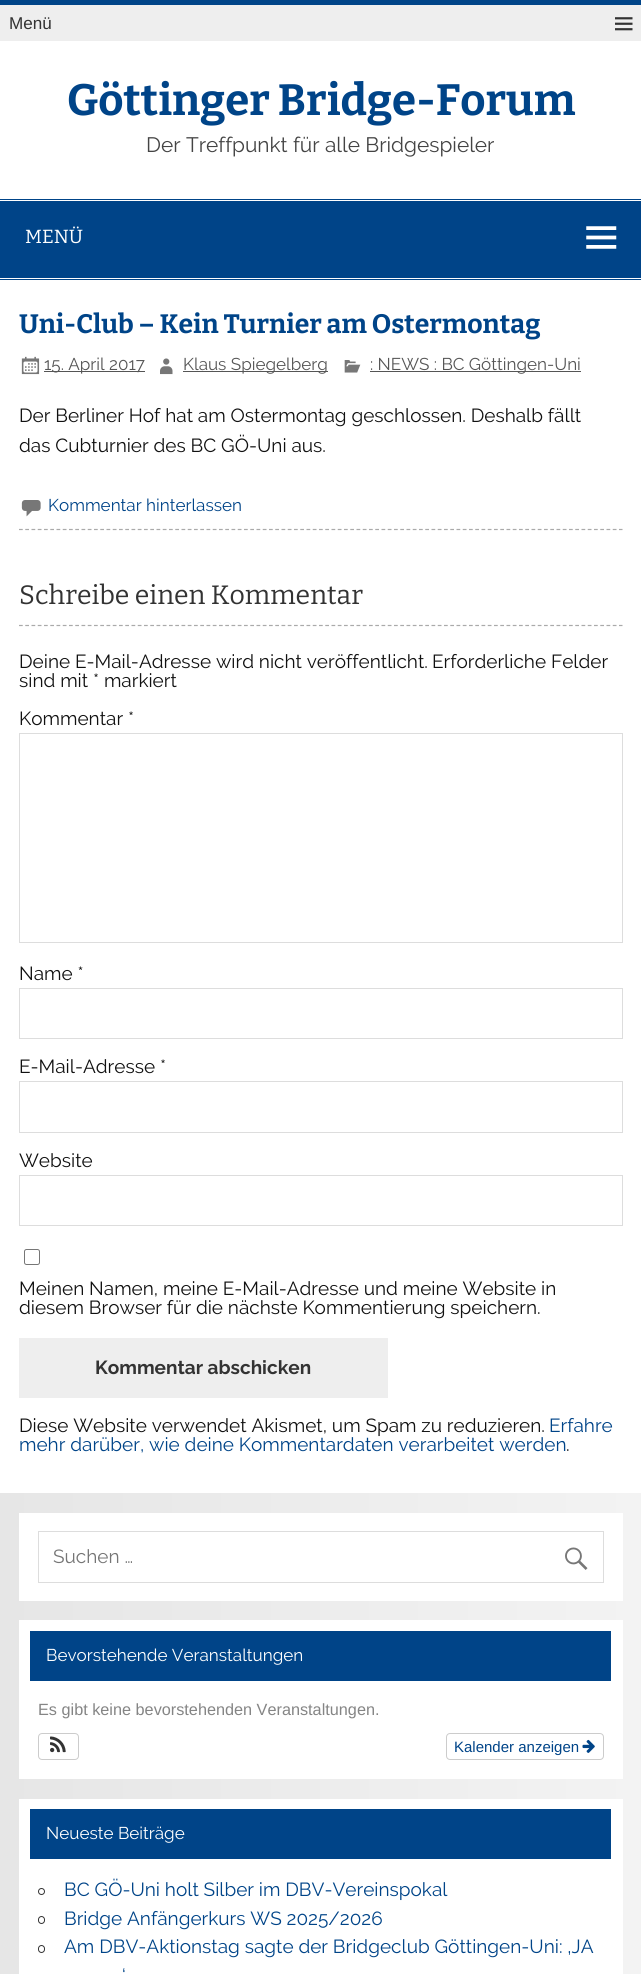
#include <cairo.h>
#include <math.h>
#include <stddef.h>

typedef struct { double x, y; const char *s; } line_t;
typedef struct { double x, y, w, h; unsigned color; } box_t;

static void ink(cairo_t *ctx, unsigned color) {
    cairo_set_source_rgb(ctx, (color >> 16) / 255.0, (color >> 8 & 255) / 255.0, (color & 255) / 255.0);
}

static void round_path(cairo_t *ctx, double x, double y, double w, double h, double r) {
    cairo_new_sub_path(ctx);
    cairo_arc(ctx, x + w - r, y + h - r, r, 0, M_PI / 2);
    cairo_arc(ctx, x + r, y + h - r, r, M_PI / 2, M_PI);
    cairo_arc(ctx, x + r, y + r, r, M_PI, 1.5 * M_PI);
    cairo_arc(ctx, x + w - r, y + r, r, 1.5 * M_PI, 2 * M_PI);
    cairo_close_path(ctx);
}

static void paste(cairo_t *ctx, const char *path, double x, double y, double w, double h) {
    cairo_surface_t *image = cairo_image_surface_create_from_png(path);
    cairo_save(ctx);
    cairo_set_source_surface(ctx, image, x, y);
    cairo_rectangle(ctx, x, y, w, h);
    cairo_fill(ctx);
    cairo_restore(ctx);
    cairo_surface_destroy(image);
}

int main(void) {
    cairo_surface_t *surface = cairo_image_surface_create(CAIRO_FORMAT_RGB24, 641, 1974);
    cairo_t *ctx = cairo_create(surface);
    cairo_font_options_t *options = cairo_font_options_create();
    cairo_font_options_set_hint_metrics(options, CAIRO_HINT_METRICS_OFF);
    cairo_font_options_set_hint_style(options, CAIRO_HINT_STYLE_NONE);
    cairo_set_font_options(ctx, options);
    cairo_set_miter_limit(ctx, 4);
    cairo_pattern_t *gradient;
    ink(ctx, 0xFFFFFF);
    cairo_paint(ctx);
    ink(ctx, 0x004488);
    cairo_rectangle(ctx, 0, 0, 641, 5);
    cairo_fill(ctx);
    ink(ctx, 0xEEEEEE);
    cairo_rectangle(ctx, 0, 5, 641, 36);
    cairo_fill(ctx);
    cairo_select_font_face(ctx, "Liberation Sans", CAIRO_FONT_SLANT_NORMAL, CAIRO_FONT_WEIGHT_NORMAL);
    cairo_set_font_size(ctx, 17.1);
    ink(ctx, 0x333333);
    cairo_move_to(ctx, 9, 29);
    cairo_show_text(ctx, "Menü");
    paste(ctx, "media/1.png", 615, 17, 18, 14);
    cairo_select_font_face(ctx, "Bitter", CAIRO_FONT_SLANT_NORMAL, CAIRO_FONT_WEIGHT_BOLD);
    cairo_set_font_size(ctx, 43.75);
    ink(ctx, 0x004488);
    cairo_move_to(ctx, 67, 115);
    cairo_show_text(ctx, "Göttinger Bridge-Forum");
    cairo_select_font_face(ctx, "Raleway", CAIRO_FONT_SLANT_NORMAL, CAIRO_FONT_WEIGHT_NORMAL);
    cairo_set_font_size(ctx, 20.9);
    ink(ctx, 0x444444);
    cairo_move_to(ctx, 146, 152);
    cairo_show_text(ctx, "Der Treffpunkt für alle Bridgespieler");
    {
        static const box_t items[] = {
            {0, 199, 641, 1, 0x004488},
            {0, 279, 641, 1, 0x004488},
            {0, 201, 641, 77, 0x004488},
        };
        for (size_t i = 0; i < sizeof items / sizeof *items; i++) {
            ink(ctx, items[i].color);
            cairo_rectangle(ctx, items[i].x, items[i].y, items[i].w, items[i].h);
            cairo_fill(ctx);
        }
    }
    cairo_select_font_face(ctx, "Bitter", CAIRO_FONT_SLANT_NORMAL, CAIRO_FONT_WEIGHT_NORMAL);
    cairo_set_font_size(ctx, 19);
    ink(ctx, 0xFFFFFF);
    cairo_move_to(ctx, 25, 243);
    cairo_show_text(ctx, "MENÜ");
    paste(ctx, "media/2.png", 586, 226, 31, 23);
    cairo_new_path(ctx);
    cairo_move_to(ctx, 19, 529.5);
    cairo_line_to(ctx, 622.5, 529.5);
    ink(ctx, 0xAAAAAA);
    cairo_set_line_width(ctx, 1.2);
    cairo_set_dash(ctx, (double[]){3.75, 2.5}, 2, 0);
    cairo_stroke(ctx);
    cairo_select_font_face(ctx, "Bitter", CAIRO_FONT_SLANT_NORMAL, CAIRO_FONT_WEIGHT_BOLD);
    cairo_set_font_size(ctx, 26.6);
    ink(ctx, 0x004488);
    cairo_move_to(ctx, 19, 333);
    cairo_show_text(ctx, "Uni-Club – Kein Turnier am Ostermontag");
    paste(ctx, "media/3.png", 21, 356, 19, 19);
    ink(ctx, 0x555555);
    cairo_rectangle(ctx, 44, 371, 101, 1);
    cairo_fill(ctx);
    cairo_select_font_face(ctx, "Raleway", CAIRO_FONT_SLANT_NORMAL, CAIRO_FONT_WEIGHT_NORMAL);
    cairo_set_font_size(ctx, 17.1);
    cairo_move_to(ctx, 44, 370);
    cairo_show_text(ctx, "15. April 2017");
    paste(ctx, "media/4.png", 160, 358, 13, 17);
    cairo_rectangle(ctx, 183, 371, 145, 1);
    cairo_fill(ctx);
    cairo_move_to(ctx, 183, 370);
    cairo_show_text(ctx, "Klaus Spiegelberg");
    paste(ctx, "media/5.png", 344, 360, 17, 13);
    cairo_rectangle(ctx, 370, 371, 211, 1);
    cairo_fill(ctx);
    cairo_move_to(ctx, 370, 370);
    cairo_show_text(ctx, ": NEWS : BC Göttingen-Uni");
    cairo_set_font_size(ctx, 19);
    ink(ctx, 0x111111);
    cairo_move_to(ctx, 19, 422);
    cairo_show_text(ctx, "Der Berliner Hof hat am Ostermontag geschlossen. Deshalb fällt");
    cairo_move_to(ctx, 19, 452);
    cairo_show_text(ctx, "das Cubturnier des BC GÖ-Uni aus.");
    paste(ctx, "media/6.png", 21, 500, 20, 17);
    cairo_set_font_size(ctx, 17.1);
    ink(ctx, 0x004488);
    cairo_move_to(ctx, 48, 511);
    cairo_show_text(ctx, "Kommentar hinterlassen");
    cairo_new_path(ctx);
    cairo_move_to(ctx, 19, 625.5);
    cairo_line_to(ctx, 622.5, 625.5);
    ink(ctx, 0xAAAAAA);
    cairo_stroke(ctx);
    cairo_select_font_face(ctx, "Bitter", CAIRO_FONT_SLANT_NORMAL, CAIRO_FONT_WEIGHT_NORMAL);
    cairo_set_font_size(ctx, 26.6);
    ink(ctx, 0x333333);
    cairo_move_to(ctx, 19, 604);
    cairo_show_text(ctx, "Schreibe einen Kommentar");
    cairo_select_font_face(ctx, "Raleway", CAIRO_FONT_SLANT_NORMAL, CAIRO_FONT_WEIGHT_NORMAL);
    cairo_set_font_size(ctx, 19);
    ink(ctx, 0x111111);
    {
        static const line_t items[] = {
            {19, 668, "Deine E-Mail-Adresse wird nicht veröffentlicht."},
            {432, 668, "Erforderliche Felder"},
            {19, 687, "sind mit * markiert"},
            {19, 725, "Kommentar *"},
        };
        for (size_t i = 0; i < sizeof items / sizeof *items; i++) {
            cairo_move_to(ctx, items[i].x, items[i].y);
            cairo_show_text(ctx, items[i].s);
        }
    }
    cairo_rectangle(ctx, 19.5, 733.5, 603, 209);
    ink(ctx, 0xDDDDDD);
    cairo_set_line_width(ctx, 1);
    cairo_set_dash(ctx, NULL, 0, 0);
    cairo_stroke(ctx);
    ink(ctx, 0x111111);
    cairo_move_to(ctx, 19, 980);
    cairo_show_text(ctx, "Name *");
    cairo_rectangle(ctx, 19.5, 988.5, 603, 50);
    ink(ctx, 0xDDDDDD);
    cairo_stroke(ctx);
    ink(ctx, 0x111111);
    cairo_move_to(ctx, 19, 1073);
    cairo_show_text(ctx, "E-Mail-Adresse *");
    cairo_rectangle(ctx, 19.5, 1081.5, 603, 51);
    ink(ctx, 0xDDDDDD);
    cairo_stroke(ctx);
    ink(ctx, 0x111111);
    cairo_move_to(ctx, 19, 1167);
    cairo_show_text(ctx, "Website");
    cairo_rectangle(ctx, 19.5, 1175.5, 603, 50);
    ink(ctx, 0xDDDDDD);
    cairo_stroke(ctx);
    round_path(ctx, 24.5, 1249.5, 15, 15, 2);
    ink(ctx, 0x767676);
    cairo_stroke(ctx);
    ink(ctx, 0x111111);
    cairo_move_to(ctx, 19, 1295);
    cairo_show_text(ctx, "Meinen Namen, meine E-Mail-Adresse und meine Website in");
    cairo_move_to(ctx, 19, 1314);
    cairo_show_text(ctx, "diesem Browser für die nächste Kommentierung speichern.");
    ink(ctx, 0xEEEEEE);
    cairo_rectangle(ctx, 19, 1338, 369, 60);
    cairo_fill(ctx);
    cairo_select_font_face(ctx, "Raleway", CAIRO_FONT_SLANT_NORMAL, CAIRO_FONT_WEIGHT_BOLD);
    ink(ctx, 0x333333);
    cairo_move_to(ctx, 95, 1374);
    cairo_show_text(ctx, "Kommentar abschicken");
    cairo_select_font_face(ctx, "Raleway", CAIRO_FONT_SLANT_NORMAL, CAIRO_FONT_WEIGHT_NORMAL);
    ink(ctx, 0x111111);
    cairo_move_to(ctx, 19, 1432);
    cairo_show_text(ctx, "Diese Website verwendet Akismet, um Spam zu reduzieren.");
    ink(ctx, 0x004488);
    cairo_move_to(ctx, 549, 1432);
    cairo_show_text(ctx, "Erfahre");
    cairo_move_to(ctx, 19, 1451);
    cairo_show_text(ctx, "mehr darüber, wie deine Kommentardaten verarbeitet werden");
    ink(ctx, 0x111111);
    cairo_move_to(ctx, 566, 1451);
    cairo_show_text(ctx, ".");
    gradient = cairo_pattern_create_linear(0, 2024, 641, 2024);
    cairo_pattern_add_color_stop_rgba(gradient, 0, 0.902, 0.902, 0.902, 1);
    cairo_pattern_add_color_stop_rgba(gradient, 1, 0.953, 0.953, 0.953, 1);
    cairo_set_source(ctx, gradient);
    cairo_pattern_destroy(gradient);
    cairo_rectangle(ctx, 0, 1493, 641, 481);
    cairo_fill(ctx);
    ink(ctx, 0xFFFFFF);
    cairo_rectangle(ctx, 19, 1513, 604, 88);
    cairo_fill(ctx);
    cairo_rectangle(ctx, 38.5, 1531.5, 565, 51);
    ink(ctx, 0xDDDDDD);
    cairo_stroke(ctx);
    ink(ctx, 0x757575);
    cairo_move_to(ctx, 53, 1563);
    cairo_show_text(ctx, "Suchen …");
    paste(ctx, "media/7.png", 565, 1547, 23, 23);
    ink(ctx, 0xFFFFFF);
    cairo_rectangle(ctx, 19, 1620, 604, 159);
    cairo_fill(ctx);
    ink(ctx, 0x004488);
    cairo_rectangle(ctx, 30, 1631, 581, 50);
    cairo_fill(ctx);
    cairo_set_font_size(ctx, 17.1);
    ink(ctx, 0xFFFFFF);
    cairo_move_to(ctx, 46, 1661);
    cairo_show_text(ctx, "Bevorstehende Veranstaltungen");
    cairo_select_font_face(ctx, "Liberation Sans", CAIRO_FONT_SLANT_NORMAL, CAIRO_FONT_WEIGHT_NORMAL);
    cairo_set_font_size(ctx, 16.25);
    ink(ctx, 0x858585);
    cairo_move_to(ctx, 38, 1715);
    cairo_show_text(ctx, "Es gibt keine bevorstehenden Veranstaltungen.");
    round_path(ctx, 38.5, 1733.5, 40, 26, 3.5);
    ink(ctx, 0xCCCCCC);
    cairo_stroke(ctx);
    paste(ctx, "media/8.png", 50, 1736, 16, 17);
    round_path(ctx, 446.5, 1733.5, 157, 26, 3.5);
    cairo_stroke(ctx);
    cairo_set_font_size(ctx, 15);
    ink(ctx, 0x004488);
    cairo_move_to(ctx, 454, 1752);
    cairo_show_text(ctx, "Kalender anzeigen");
    paste(ctx, "media/9.png", 582, 1739, 13, 14);
    ink(ctx, 0xFFFFFF);
    cairo_rectangle(ctx, 19, 1799, 604, 175);
    cairo_fill(ctx);
    ink(ctx, 0x004488);
    cairo_rectangle(ctx, 30, 1809, 581, 50);
    cairo_fill(ctx);
    cairo_select_font_face(ctx, "Raleway", CAIRO_FONT_SLANT_NORMAL, CAIRO_FONT_WEIGHT_NORMAL);
    cairo_set_font_size(ctx, 17.1);
    ink(ctx, 0xFFFFFF);
    cairo_move_to(ctx, 46, 1839);
    cairo_show_text(ctx, "Neueste Beiträge");
    cairo_new_path(ctx);
    cairo_arc(ctx, 41.5, 1891.5, 3, 0, 2 * M_PI);
    ink(ctx, 0x333333);
    cairo_stroke(ctx);
    cairo_set_font_size(ctx, 19);
    ink(ctx, 0x004488);
    cairo_move_to(ctx, 64, 1896);
    cairo_show_text(ctx, "BC GÖ-Uni holt Silber im DBV-Vereinspokal");
    round_path(ctx, 38.5, 1916.5, 6, 7, 3);
    ink(ctx, 0x333333);
    cairo_stroke(ctx);
    ink(ctx, 0x004488);
    cairo_move_to(ctx, 64, 1925);
    cairo_show_text(ctx, "Bridge Anfängerkurs WS 2025/2026");
    round_path(ctx, 38.5, 1945.5, 6, 7, 3);
    ink(ctx, 0x333333);
    cairo_stroke(ctx);
    ink(ctx, 0x004488);
    cairo_move_to(ctx, 64, 1953);
    cairo_show_text(ctx, "Am DBV-Aktionstag sagte der Bridgeclub Göttingen-Uni: ‚JA");
    cairo_move_to(ctx, 122, 1982);
    cairo_show_text(ctx, "‘");
    cairo_surface_write_to_png(surface, "image.png");
    cairo_font_options_destroy(options);
    cairo_destroy(ctx);
    cairo_surface_destroy(surface);
    return 0;
}
